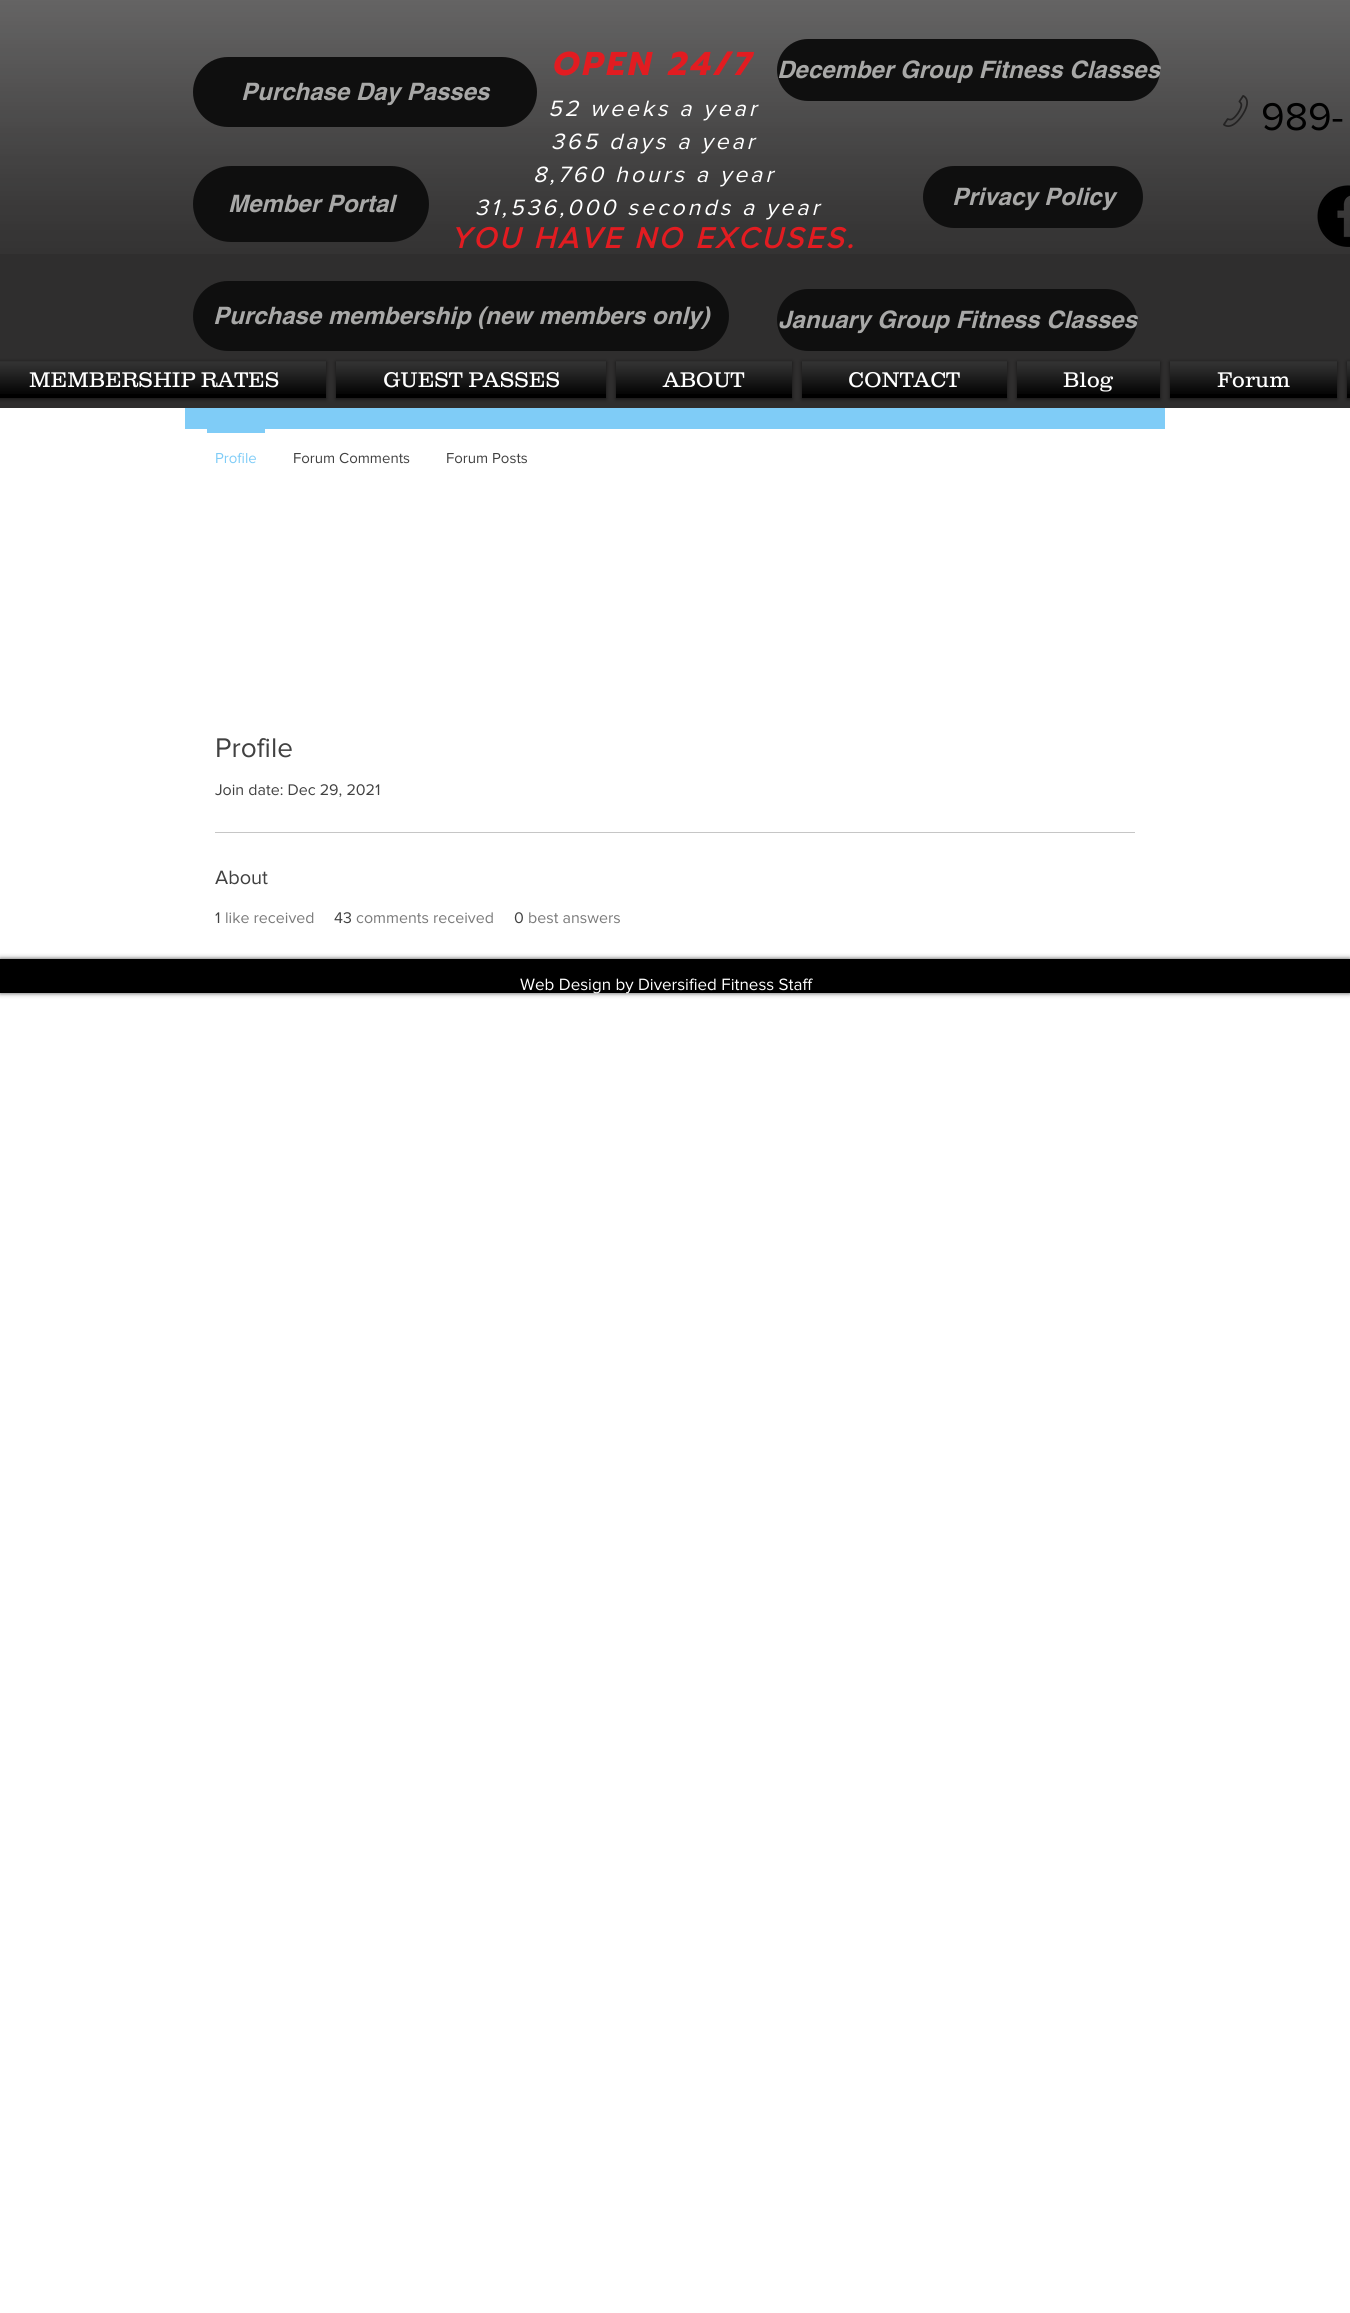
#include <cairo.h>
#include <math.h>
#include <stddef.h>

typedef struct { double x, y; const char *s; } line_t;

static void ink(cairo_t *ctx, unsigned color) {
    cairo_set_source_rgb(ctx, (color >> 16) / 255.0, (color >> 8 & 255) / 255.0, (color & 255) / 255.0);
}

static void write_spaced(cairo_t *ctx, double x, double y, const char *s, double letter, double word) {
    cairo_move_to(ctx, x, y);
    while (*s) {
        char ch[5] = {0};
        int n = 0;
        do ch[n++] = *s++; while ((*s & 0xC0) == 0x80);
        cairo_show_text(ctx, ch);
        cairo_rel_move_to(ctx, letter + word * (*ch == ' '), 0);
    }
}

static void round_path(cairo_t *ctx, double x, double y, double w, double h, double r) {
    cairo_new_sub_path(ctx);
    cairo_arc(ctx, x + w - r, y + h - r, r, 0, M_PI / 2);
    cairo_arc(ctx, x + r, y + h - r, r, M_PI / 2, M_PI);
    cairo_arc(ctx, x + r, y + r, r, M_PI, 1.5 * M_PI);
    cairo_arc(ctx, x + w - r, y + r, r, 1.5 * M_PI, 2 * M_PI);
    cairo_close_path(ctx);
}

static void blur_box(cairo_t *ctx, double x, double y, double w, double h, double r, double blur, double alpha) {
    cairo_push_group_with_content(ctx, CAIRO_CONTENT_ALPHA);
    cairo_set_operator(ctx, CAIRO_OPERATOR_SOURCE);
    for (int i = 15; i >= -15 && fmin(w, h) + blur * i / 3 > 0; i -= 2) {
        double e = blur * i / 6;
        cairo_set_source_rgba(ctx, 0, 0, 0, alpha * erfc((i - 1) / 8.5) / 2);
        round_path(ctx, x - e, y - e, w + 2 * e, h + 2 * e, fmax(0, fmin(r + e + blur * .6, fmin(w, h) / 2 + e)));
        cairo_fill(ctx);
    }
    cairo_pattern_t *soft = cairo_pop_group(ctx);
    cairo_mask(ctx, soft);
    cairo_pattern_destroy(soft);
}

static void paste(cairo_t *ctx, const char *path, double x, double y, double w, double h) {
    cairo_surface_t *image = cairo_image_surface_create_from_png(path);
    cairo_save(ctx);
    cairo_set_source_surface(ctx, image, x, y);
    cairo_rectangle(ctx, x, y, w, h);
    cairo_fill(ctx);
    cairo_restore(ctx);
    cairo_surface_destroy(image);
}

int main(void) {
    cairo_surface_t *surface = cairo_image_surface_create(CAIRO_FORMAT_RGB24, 1350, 2313);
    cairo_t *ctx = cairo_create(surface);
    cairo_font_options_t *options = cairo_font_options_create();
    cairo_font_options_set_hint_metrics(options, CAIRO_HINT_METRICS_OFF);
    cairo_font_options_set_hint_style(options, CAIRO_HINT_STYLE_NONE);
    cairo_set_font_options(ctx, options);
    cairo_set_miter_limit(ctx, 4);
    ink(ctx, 0xFFFFFF);
    cairo_paint(ctx);
    ink(ctx, 0x2F2E2E);
    cairo_rectangle(ctx, 0, 0, 1350, 408);
    cairo_fill(ctx);
    paste(ctx, "media/1.png", 0, 0, 1350, 254);
    cairo_select_font_face(ctx, "Prompt", CAIRO_FONT_SLANT_ITALIC, CAIRO_FONT_WEIGHT_BOLD);
    cairo_set_font_size(ctx, 33);
    ink(ctx, 0xE21C21);
    write_spaced(ctx, 553, 75, "OPEN 24/7", 3, 0);
    cairo_select_font_face(ctx, "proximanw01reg", CAIRO_FONT_SLANT_ITALIC, CAIRO_FONT_WEIGHT_NORMAL);
    cairo_set_font_size(ctx, 23);
    ink(ctx, 0xFFFFFF);
    {
        static const line_t items[] = {
            {548, 116, "52 weeks a year"},
            {551, 149, "365 days a year"},
            {533, 182, "8,760 hours a year"},
            {475, 215, "31,536,000 seconds a year"},
        };
        for (size_t i = 0; i < sizeof items / sizeof *items; i++) {
            write_spaced(ctx, items[i].x, items[i].y, items[i].s, 3, 0);
        }
    }
    cairo_select_font_face(ctx, "proximanw01reg", CAIRO_FONT_SLANT_ITALIC, CAIRO_FONT_WEIGHT_BOLD);
    cairo_set_font_size(ctx, 30);
    ink(ctx, 0xE21C21);
    write_spaced(ctx, 451, 248, "YOU HAVE NO EXCUSES.", 3, 0);
    ink(ctx, 0x0F0F0F);
    round_path(ctx, 777, 39, 383, 62, 31);
    cairo_fill(ctx);
    cairo_select_font_face(ctx, "helvetica", CAIRO_FONT_SLANT_ITALIC, CAIRO_FONT_WEIGHT_BOLD);
    cairo_set_font_size(ctx, 24);
    ink(ctx, 0xA8A8A7);
    cairo_move_to(ctx, 777, 78);
    cairo_show_text(ctx, "December Group Fitness Classes");
    ink(ctx, 0x0F0F0F);
    round_path(ctx, 193, 57, 344, 70, 35);
    cairo_fill(ctx);
    ink(ctx, 0xA8A8A7);
    cairo_move_to(ctx, 241, 100);
    cairo_show_text(ctx, "Purchase Day Passes");
    paste(ctx, "media/2.png", 1223, 95, 25, 32);
    cairo_select_font_face(ctx, "proximanw01reg", CAIRO_FONT_SLANT_NORMAL, CAIRO_FONT_WEIGHT_NORMAL);
    cairo_set_font_size(ctx, 40);
    ink(ctx, 0x000000);
    cairo_move_to(ctx, 1261, 130);
    cairo_show_text(ctx, "989-");
    ink(ctx, 0x0F0F0F);
    round_path(ctx, 193, 166, 236, 76, 38);
    cairo_fill(ctx);
    cairo_select_font_face(ctx, "helvetica", CAIRO_FONT_SLANT_ITALIC, CAIRO_FONT_WEIGHT_BOLD);
    cairo_set_font_size(ctx, 24);
    ink(ctx, 0xA8A8A7);
    cairo_move_to(ctx, 228, 212);
    cairo_show_text(ctx, "Member Portal");
    ink(ctx, 0x0F0F0F);
    round_path(ctx, 923, 166, 220, 62, 31);
    cairo_fill(ctx);
    ink(ctx, 0xA8A8A7);
    cairo_move_to(ctx, 952, 205);
    cairo_show_text(ctx, "Privacy Policy");
    paste(ctx, "media/3.png", 1317, 185, 33, 62);
    ink(ctx, 0x0F0F0F);
    round_path(ctx, 193, 281, 536, 70, 35);
    cairo_fill(ctx);
    ink(ctx, 0xA8A8A7);
    cairo_move_to(ctx, 213, 324);
    cairo_show_text(ctx, "Purchase membership (new members only)");
    ink(ctx, 0x0F0F0F);
    round_path(ctx, 777, 289, 360, 62, 31);
    cairo_fill(ctx);
    ink(ctx, 0xA8A8A7);
    cairo_move_to(ctx, 778, 328);
    cairo_show_text(ctx, "January Group Fitness Classes");
    ink(ctx, 0x000000);
    blur_box(ctx, -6, 362, 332, 37, 0, 2, 0.6);
    ink(ctx, 0x000000);
    cairo_rectangle(ctx, 0, 361, 326, 37);
    cairo_fill(ctx);
    paste(ctx, "media/4.png", 0, 361, 326, 33);
    cairo_select_font_face(ctx, "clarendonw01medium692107 Light", CAIRO_FONT_SLANT_NORMAL, CAIRO_FONT_WEIGHT_NORMAL);
    cairo_set_font_size(ctx, 22);
    ink(ctx, 0xFFFFFF);
    cairo_move_to(ctx, 29, 387);
    cairo_show_text(ctx, "MEMBERSHIP RATES");
    ink(ctx, 0x000000);
    blur_box(ctx, 336, 362, 270, 37, 0, 2, 0.6);
    ink(ctx, 0x000000);
    cairo_rectangle(ctx, 336, 361, 270, 37);
    cairo_fill(ctx);
    paste(ctx, "media/5.png", 336, 361, 270, 33);
    ink(ctx, 0xFFFFFF);
    cairo_move_to(ctx, 383, 387);
    cairo_show_text(ctx, "GUEST PASSES");
    ink(ctx, 0x000000);
    blur_box(ctx, 616, 362, 176, 37, 0, 2, 0.6);
    ink(ctx, 0x000000);
    cairo_rectangle(ctx, 616, 361, 176, 37);
    cairo_fill(ctx);
    paste(ctx, "media/6.png", 616, 361, 176, 33);
    ink(ctx, 0xFFFFFF);
    cairo_move_to(ctx, 663, 387);
    cairo_show_text(ctx, "ABOUT");
    ink(ctx, 0x000000);
    blur_box(ctx, 802, 362, 205, 37, 0, 2, 0.6);
    ink(ctx, 0x000000);
    cairo_rectangle(ctx, 802, 361, 205, 37);
    cairo_fill(ctx);
    paste(ctx, "media/7.png", 802, 361, 205, 33);
    ink(ctx, 0xFFFFFF);
    cairo_move_to(ctx, 848, 387);
    cairo_show_text(ctx, "CONTACT");
    ink(ctx, 0x000000);
    blur_box(ctx, 1017, 362, 143, 37, 0, 2, 0.6);
    ink(ctx, 0x000000);
    cairo_rectangle(ctx, 1017, 361, 143, 37);
    cairo_fill(ctx);
    paste(ctx, "media/8.png", 1017, 361, 143, 33);
    ink(ctx, 0xFFFFFF);
    cairo_move_to(ctx, 1063, 387);
    cairo_show_text(ctx, "Blog");
    ink(ctx, 0x000000);
    blur_box(ctx, 1170, 362, 167, 37, 0, 2, 0.6);
    ink(ctx, 0x000000);
    cairo_rectangle(ctx, 1170, 361, 167, 37);
    cairo_fill(ctx);
    paste(ctx, "media/9.png", 1170, 361, 167, 33);
    ink(ctx, 0xFFFFFF);
    cairo_move_to(ctx, 1217, 387);
    cairo_show_text(ctx, "Forum");
    ink(ctx, 0x000000);
    blur_box(ctx, 1347, 362, 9, 37, 0, 2, 0.6);
    ink(ctx, 0x000000);
    cairo_rectangle(ctx, 1347, 361, 3, 37);
    cairo_fill(ctx);
    paste(ctx, "media/10.png", 1347, 361, 3, 33);
    ink(ctx, 0x7FCCF7);
    cairo_rectangle(ctx, 185, 408, 980, 21);
    cairo_fill(ctx);
    cairo_rectangle(ctx, 207, 429, 58, 4);
    cairo_fill(ctx);
    cairo_select_font_face(ctx, "proximanw01reg", CAIRO_FONT_SLANT_NORMAL, CAIRO_FONT_WEIGHT_NORMAL);
    cairo_set_font_size(ctx, 15);
    cairo_move_to(ctx, 215, 463);
    cairo_show_text(ctx, "Profile");
    ink(ctx, 0x414141);
    cairo_move_to(ctx, 293, 463);
    cairo_show_text(ctx, "Forum Comments");
    cairo_move_to(ctx, 446, 463);
    cairo_show_text(ctx, "Forum Posts");
    cairo_set_font_size(ctx, 28);
    cairo_move_to(ctx, 215, 757);
    cairo_show_text(ctx, "Profile");
    cairo_set_font_size(ctx, 16);
    cairo_move_to(ctx, 215, 795);
    cairo_show_text(ctx, "Join date: Dec 29, 2021");
    ink(ctx, 0xC6C6C6);
    cairo_rectangle(ctx, 215, 832, 920, 1);
    cairo_fill(ctx);
    cairo_set_font_size(ctx, 20);
    ink(ctx, 0x414141);
    cairo_move_to(ctx, 215, 884);
    cairo_show_text(ctx, "About");
    cairo_set_font_size(ctx, 16);
    cairo_move_to(ctx, 215, 923);
    cairo_show_text(ctx, "1");
    ink(ctx, 0x7A7A7A);
    cairo_move_to(ctx, 225, 923);
    cairo_show_text(ctx, "like received");
    ink(ctx, 0x414141);
    cairo_move_to(ctx, 334, 923);
    cairo_show_text(ctx, "43");
    ink(ctx, 0x7A7A7A);
    cairo_move_to(ctx, 356, 923);
    cairo_show_text(ctx, "comments received");
    ink(ctx, 0x414141);
    cairo_move_to(ctx, 514, 923);
    cairo_show_text(ctx, "0");
    ink(ctx, 0x7A7A7A);
    cairo_move_to(ctx, 528, 923);
    cairo_show_text(ctx, "best answers");
    ink(ctx, 0x000000);
    blur_box(ctx, 0, 959, 1350, 34, 0, 2.5, 0.7);
    ink(ctx, 0x000000);
    cairo_rectangle(ctx, 0, 959, 1350, 34);
    cairo_fill(ctx);
    cairo_set_font_size(ctx, 17);
    ink(ctx, 0xFFFFFF);
    cairo_move_to(ctx, 520, 990);
    cairo_show_text(ctx, "Web Design by Diversified Fitness Staff");
    cairo_surface_write_to_png(surface, "image.png");
    cairo_font_options_destroy(options);
    cairo_destroy(ctx);
    cairo_surface_destroy(surface);
    return 0;
}
